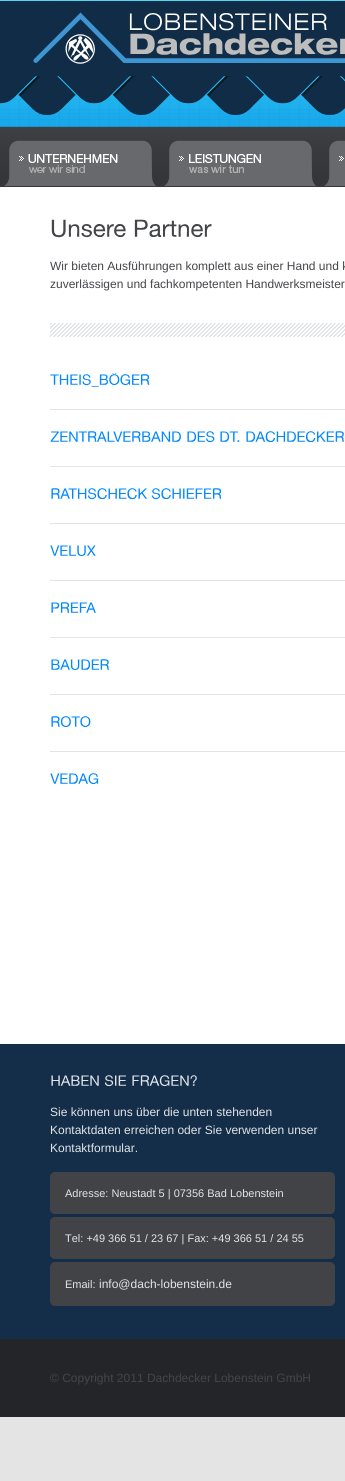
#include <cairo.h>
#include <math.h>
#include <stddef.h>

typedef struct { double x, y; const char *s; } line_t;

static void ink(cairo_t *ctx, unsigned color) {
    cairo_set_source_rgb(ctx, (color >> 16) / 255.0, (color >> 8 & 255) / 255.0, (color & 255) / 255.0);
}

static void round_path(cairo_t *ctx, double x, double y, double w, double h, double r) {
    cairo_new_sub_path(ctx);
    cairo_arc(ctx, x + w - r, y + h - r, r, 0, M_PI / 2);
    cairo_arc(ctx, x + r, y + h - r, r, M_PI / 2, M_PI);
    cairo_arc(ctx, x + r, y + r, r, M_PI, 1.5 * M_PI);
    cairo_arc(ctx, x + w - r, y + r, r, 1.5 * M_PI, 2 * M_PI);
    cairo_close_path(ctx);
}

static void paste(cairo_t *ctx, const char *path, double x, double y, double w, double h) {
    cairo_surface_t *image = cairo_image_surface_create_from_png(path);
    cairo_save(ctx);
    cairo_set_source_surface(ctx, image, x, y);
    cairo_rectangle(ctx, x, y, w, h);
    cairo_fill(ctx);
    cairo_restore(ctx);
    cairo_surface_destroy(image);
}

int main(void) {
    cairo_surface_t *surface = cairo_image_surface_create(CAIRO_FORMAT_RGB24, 345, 1481);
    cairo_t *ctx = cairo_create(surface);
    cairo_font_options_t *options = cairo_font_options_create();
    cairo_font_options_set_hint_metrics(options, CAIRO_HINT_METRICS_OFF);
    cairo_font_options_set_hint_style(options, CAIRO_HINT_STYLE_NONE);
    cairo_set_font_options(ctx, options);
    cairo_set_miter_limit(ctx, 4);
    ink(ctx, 0xE4E4E4);
    cairo_paint(ctx);
    paste(ctx, "media/1.png", 0, 0, 345, 127);
    paste(ctx, "media/2.png", 0, 0, 345, 115);
    paste(ctx, "media/3.png", 0, 127, 345, 60);
    paste(ctx, "media/4.png", 4, 140, 152, 46);
    paste(ctx, "media/5.png", 164, 140, 152, 46);
    paste(ctx, "media/6.png", 324, 140, 21, 46);
    ink(ctx, 0xFFFFFF);
    cairo_rectangle(ctx, 0, 187, 345, 857);
    cairo_fill(ctx);
    paste(ctx, "media/7.png", 51, 219, 75, 19);
    paste(ctx, "media/8.png", 134, 219, 78, 18);
    cairo_select_font_face(ctx, "Liberation Sans", CAIRO_FONT_SLANT_NORMAL, CAIRO_FONT_WEIGHT_NORMAL);
    cairo_set_font_size(ctx, 12);
    ink(ctx, 0x444549);
    cairo_move_to(ctx, 50, 270);
    cairo_show_text(ctx, "Wir bieten Ausführungen komplett aus einer Hand und k");
    cairo_move_to(ctx, 50, 288);
    cairo_show_text(ctx, "zuverlässigen und fachkompetenten Handwerksmeister");
    paste(ctx, "media/9.png", 50, 323, 295, 14);
    ink(ctx, 0xE1E5E9);
    cairo_rectangle(ctx, 50, 409, 295, 1);
    cairo_fill(ctx);
    paste(ctx, "media/10.png", 50, 373, 100, 14);
    cairo_rectangle(ctx, 50, 466, 295, 1);
    cairo_fill(ctx);
    paste(ctx, "media/11.png", 50, 431, 131, 11);
    paste(ctx, "media/12.png", 187, 431, 28, 12);
    paste(ctx, "media/13.png", 220, 431, 20, 11);
    paste(ctx, "media/14.png", 246, 431, 98, 11);
    cairo_rectangle(ctx, 50, 523, 295, 1);
    cairo_fill(ctx);
    paste(ctx, "media/15.png", 51, 488, 96, 12);
    paste(ctx, "media/16.png", 151, 488, 71, 12);
    cairo_rectangle(ctx, 50, 580, 295, 1);
    cairo_fill(ctx);
    paste(ctx, "media/17.png", 50, 545, 46, 11);
    cairo_rectangle(ctx, 50, 637, 295, 1);
    cairo_fill(ctx);
    paste(ctx, "media/18.png", 51, 602, 45, 11);
    cairo_rectangle(ctx, 50, 694, 295, 1);
    cairo_fill(ctx);
    paste(ctx, "media/19.png", 51, 659, 58, 11);
    cairo_rectangle(ctx, 50, 751, 295, 1);
    cairo_fill(ctx);
    paste(ctx, "media/20.png", 51, 716, 40, 11);
    paste(ctx, "media/21.png", 50, 773, 49, 11);
    ink(ctx, 0x142D48);
    cairo_rectangle(ctx, 0, 1044, 345, 295);
    cairo_fill(ctx);
    paste(ctx, "media/22.png", 51, 1075, 48, 11);
    paste(ctx, "media/23.png", 104, 1075, 22, 12);
    paste(ctx, "media/24.png", 132, 1075, 65, 11);
    ink(ctx, 0xE1E5E9);
    {
        static const line_t items[] = {
            {50, 1116, "Sie können uns über die unten stehenden"},
            {50, 1134, "Kontaktdaten erreichen oder Sie verwenden unser"},
            {50, 1152, "Kontaktformular."},
        };
        for (size_t i = 0; i < sizeof items / sizeof *items; i++) {
            cairo_move_to(ctx, items[i].x, items[i].y);
            cairo_show_text(ctx, items[i].s);
        }
    }
    ink(ctx, 0x424347);
    round_path(ctx, 50, 1172, 285, 42, 5);
    cairo_fill(ctx);
    cairo_set_font_size(ctx, 11);
    ink(ctx, 0xE1E5E9);
    cairo_move_to(ctx, 65, 1197);
    cairo_show_text(ctx, "Adresse: Neustadt 5 | 07356 Bad Lobenstein");
    ink(ctx, 0x424347);
    round_path(ctx, 50, 1217, 285, 42, 5);
    cairo_fill(ctx);
    ink(ctx, 0xE1E5E9);
    cairo_move_to(ctx, 65, 1242);
    cairo_show_text(ctx, "Tel: +49 366 51 / 23 67 | Fax: +49 366 51 / 24 55");
    ink(ctx, 0x424347);
    round_path(ctx, 50, 1262, 285, 44, 5);
    cairo_fill(ctx);
    ink(ctx, 0xE1E5E9);
    cairo_move_to(ctx, 65, 1288);
    cairo_show_text(ctx, "Email:");
    cairo_set_font_size(ctx, 12);
    cairo_move_to(ctx, 99, 1288);
    cairo_show_text(ctx, "info@dach-lobenstein.de");
    ink(ctx, 0x242528);
    cairo_rectangle(ctx, 0, 1339, 345, 78);
    cairo_fill(ctx);
    ink(ctx, 0x444549);
    cairo_move_to(ctx, 50, 1382);
    cairo_show_text(ctx, "© Copyright 2011 Dachdecker Lobenstein GmbH");
    cairo_surface_write_to_png(surface, "image.png");
    cairo_font_options_destroy(options);
    cairo_destroy(ctx);
    cairo_surface_destroy(surface);
    return 0;
}
